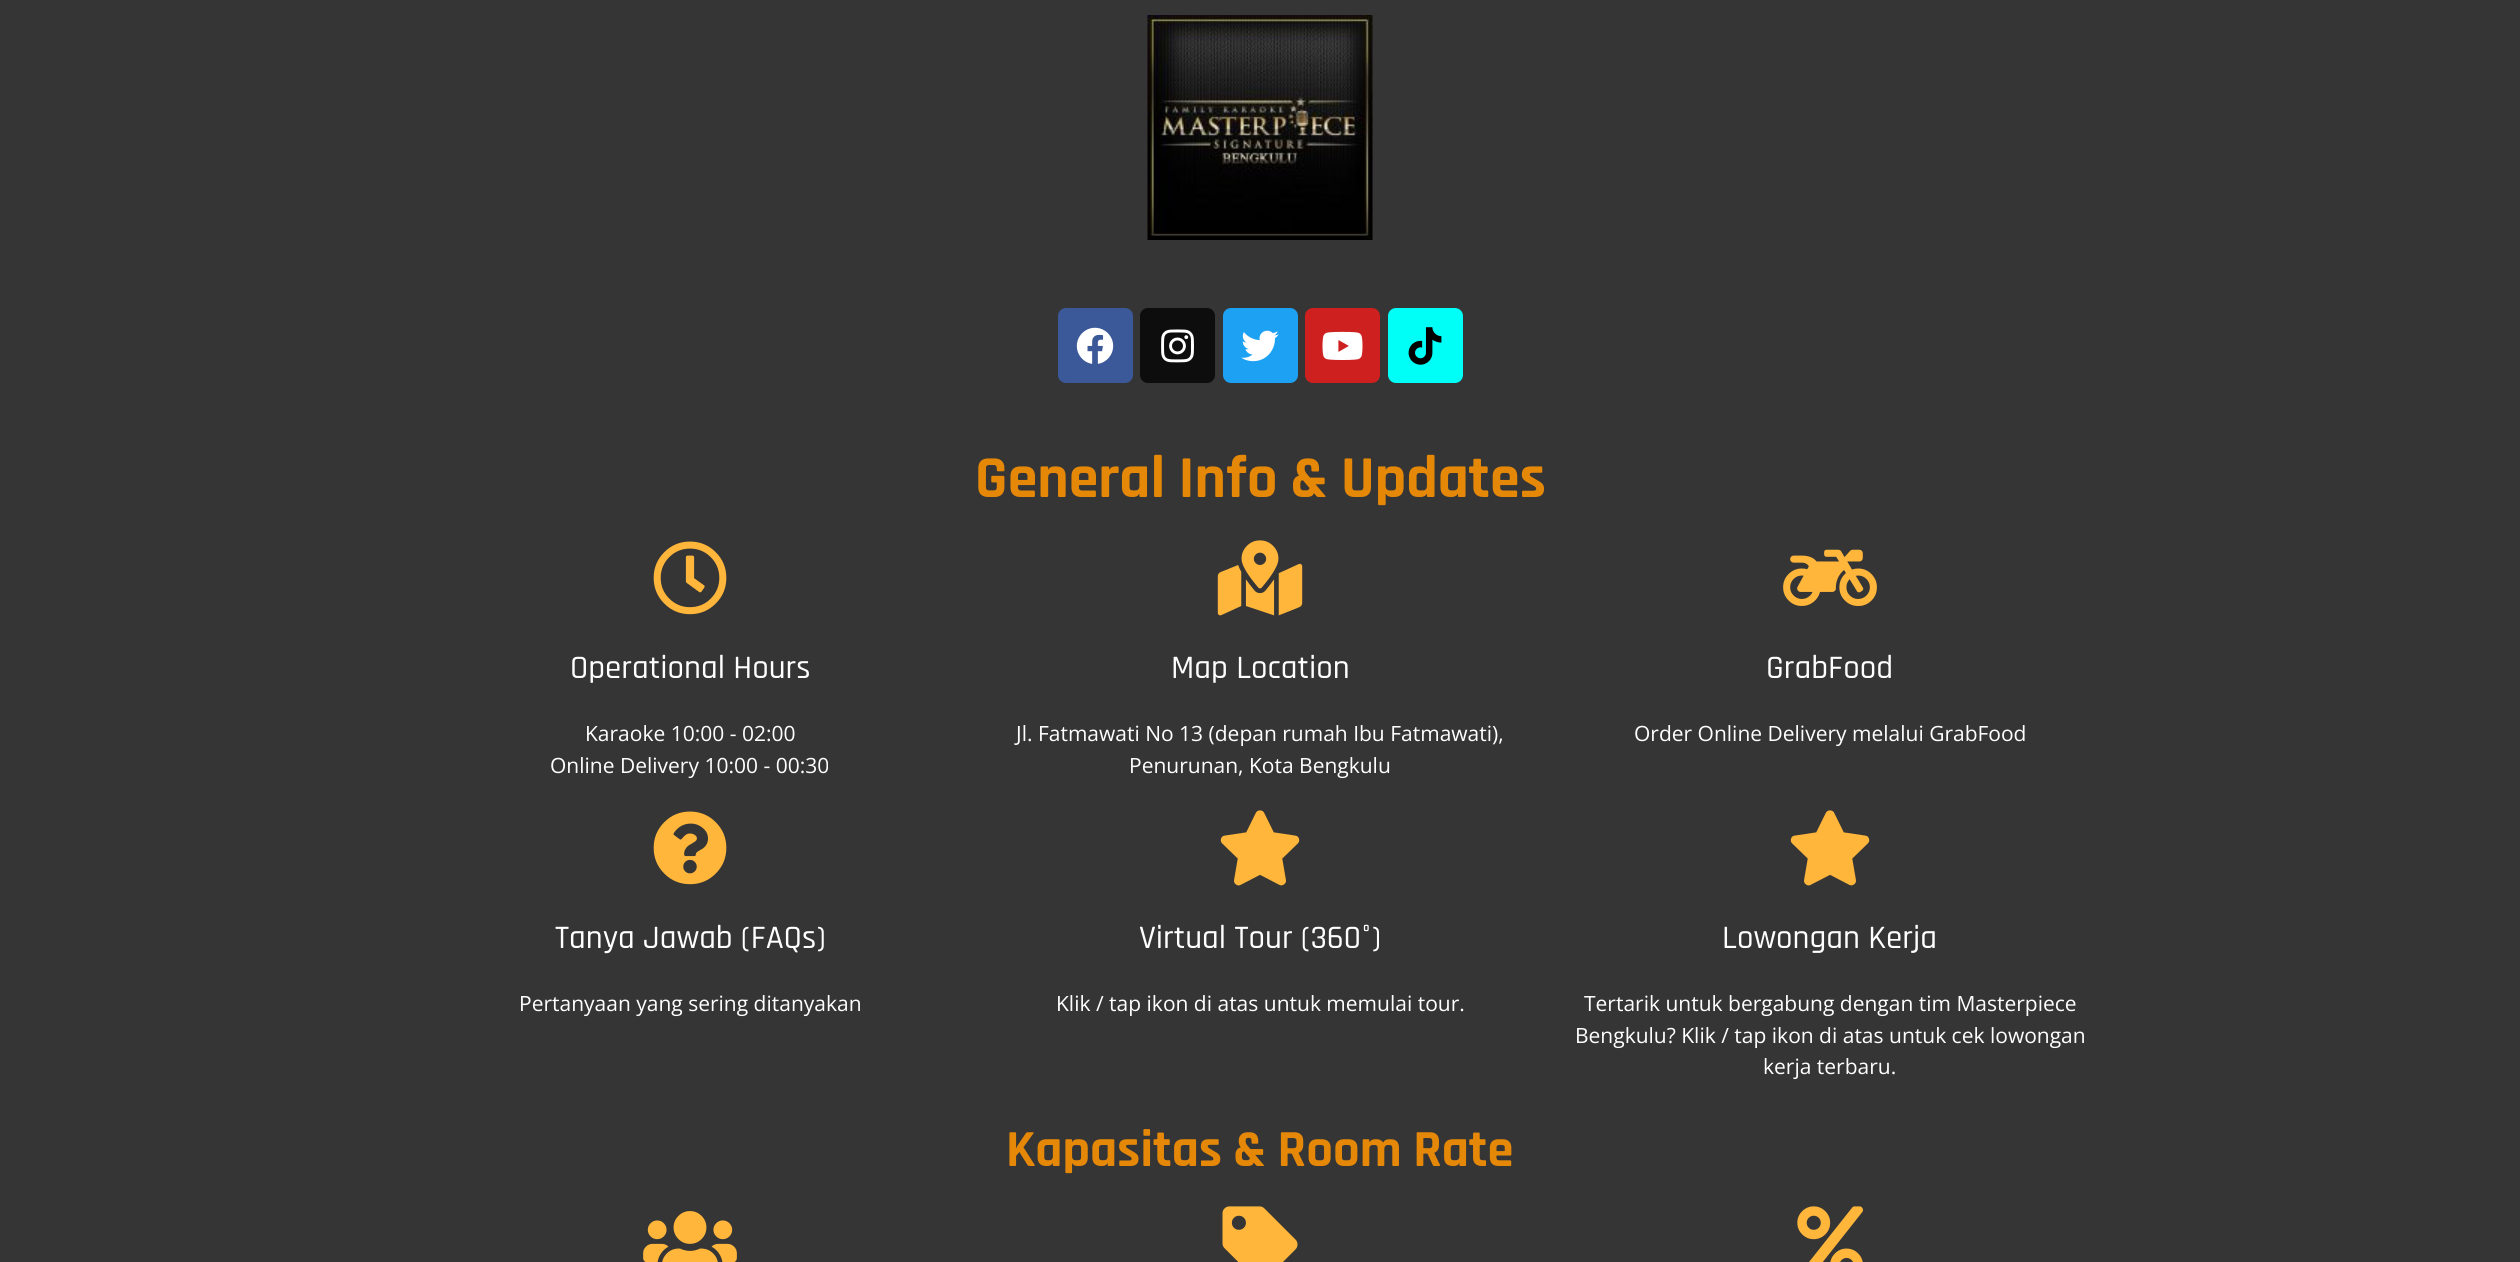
#include <cairo.h>
#include <math.h>
#include <stddef.h>

typedef struct { double x, y; const char *s; } line_t;

static void ink(cairo_t *ctx, unsigned color) {
    cairo_set_source_rgb(ctx, (color >> 16) / 255.0, (color >> 8 & 255) / 255.0, (color & 255) / 255.0);
}

static void round_path(cairo_t *ctx, double x, double y, double w, double h, double r) {
    cairo_new_sub_path(ctx);
    cairo_arc(ctx, x + w - r, y + h - r, r, 0, M_PI / 2);
    cairo_arc(ctx, x + r, y + h - r, r, M_PI / 2, M_PI);
    cairo_arc(ctx, x + r, y + r, r, M_PI, 1.5 * M_PI);
    cairo_arc(ctx, x + w - r, y + r, r, 1.5 * M_PI, 2 * M_PI);
    cairo_close_path(ctx);
}

static void paste(cairo_t *ctx, const char *path, double x, double y, double w, double h) {
    cairo_surface_t *image = cairo_image_surface_create_from_png(path);
    cairo_save(ctx);
    cairo_set_source_surface(ctx, image, x, y);
    cairo_rectangle(ctx, x, y, w, h);
    cairo_fill(ctx);
    cairo_restore(ctx);
    cairo_surface_destroy(image);
}

int main(void) {
    cairo_surface_t *surface = cairo_image_surface_create(CAIRO_FORMAT_RGB24, 2520, 1262);
    cairo_t *ctx = cairo_create(surface);
    cairo_font_options_t *options = cairo_font_options_create();
    cairo_font_options_set_hint_metrics(options, CAIRO_HINT_METRICS_OFF);
    cairo_font_options_set_hint_style(options, CAIRO_HINT_STYLE_NONE);
    cairo_set_font_options(ctx, options);
    cairo_set_miter_limit(ctx, 4);
    ink(ctx, 0x353535);
    cairo_paint(ctx);
    paste(ctx, "media/1.png", 1147, 15, 226, 225);
    ink(ctx, 0x3B5998);
    round_path(ctx, 1058, 308, 75, 75, 8);
    cairo_fill(ctx);
    paste(ctx, "media/2.png", 1076, 327, 38, 37);
    ink(ctx, 0x0D0D0D);
    round_path(ctx, 1140, 308, 75, 75, 8);
    cairo_fill(ctx);
    paste(ctx, "media/3.png", 1161, 329, 33, 34);
    ink(ctx, 0x1DA1F2);
    round_path(ctx, 1223, 308, 75, 75, 8);
    cairo_fill(ctx);
    paste(ctx, "media/4.png", 1241, 330, 38, 32);
    ink(ctx, 0xCD201F);
    round_path(ctx, 1305, 308, 75, 75, 8);
    cairo_fill(ctx);
    paste(ctx, "media/5.png", 1322, 331, 41, 29);
    ink(ctx, 0x00FFF6);
    round_path(ctx, 1388, 308, 75, 75, 8);
    cairo_fill(ctx);
    paste(ctx, "media/6.png", 1408, 327, 34, 38);
    cairo_select_font_face(ctx, "Rajdhani", CAIRO_FONT_SLANT_NORMAL, CAIRO_FONT_WEIGHT_BOLD);
    cairo_set_font_size(ctx, 60);
    ink(ctx, 0xE68807);
    cairo_move_to(ctx, 975, 497);
    cairo_show_text(ctx, "General Info & Updates");
    paste(ctx, "media/7.png", 653, 541, 74, 74);
    cairo_select_font_face(ctx, "Rajdhani Medium", CAIRO_FONT_SLANT_NORMAL, CAIRO_FONT_WEIGHT_NORMAL);
    cairo_set_font_size(ctx, 33);
    ink(ctx, 0xFFFFFF);
    cairo_move_to(ctx, 570, 678);
    cairo_show_text(ctx, "Operational Hours");
    cairo_select_font_face(ctx, "Open Sans", CAIRO_FONT_SLANT_NORMAL, CAIRO_FONT_WEIGHT_NORMAL);
    cairo_set_font_size(ctx, 21);
    cairo_move_to(ctx, 585, 741);
    cairo_show_text(ctx, "Karaoke 10:00 - 02:00");
    cairo_move_to(ctx, 550, 773);
    cairo_show_text(ctx, "Online Delivery 10:00 - 00:30");
    paste(ctx, "media/8.png", 1217, 540, 86, 76);
    cairo_select_font_face(ctx, "Rajdhani Medium", CAIRO_FONT_SLANT_NORMAL, CAIRO_FONT_WEIGHT_NORMAL);
    cairo_set_font_size(ctx, 33);
    cairo_move_to(ctx, 1171, 678);
    cairo_show_text(ctx, "Map Location");
    cairo_select_font_face(ctx, "Open Sans", CAIRO_FONT_SLANT_NORMAL, CAIRO_FONT_WEIGHT_NORMAL);
    cairo_set_font_size(ctx, 21);
    cairo_move_to(ctx, 1016, 741);
    cairo_show_text(ctx, "Jl. Fatmawati No 13 (depan rumah Ibu Fatmawati),");
    cairo_move_to(ctx, 1129, 773);
    cairo_show_text(ctx, "Penurunan, Kota Bengkulu");
    paste(ctx, "media/9.png", 1783, 549, 94, 57);
    cairo_select_font_face(ctx, "Rajdhani Medium", CAIRO_FONT_SLANT_NORMAL, CAIRO_FONT_WEIGHT_NORMAL);
    cairo_set_font_size(ctx, 33);
    cairo_move_to(ctx, 1766, 678);
    cairo_show_text(ctx, "GrabFood");
    cairo_select_font_face(ctx, "Open Sans", CAIRO_FONT_SLANT_NORMAL, CAIRO_FONT_WEIGHT_NORMAL);
    cairo_set_font_size(ctx, 21);
    cairo_move_to(ctx, 1634, 741);
    cairo_show_text(ctx, "Order Online Delivery melalui GrabFood");
    paste(ctx, "media/10.png", 653, 811, 74, 74);
    cairo_select_font_face(ctx, "Rajdhani Medium", CAIRO_FONT_SLANT_NORMAL, CAIRO_FONT_WEIGHT_NORMAL);
    cairo_set_font_size(ctx, 33);
    cairo_move_to(ctx, 555, 948);
    cairo_show_text(ctx, "Tanya Jawab (FAQs)");
    cairo_select_font_face(ctx, "Open Sans", CAIRO_FONT_SLANT_NORMAL, CAIRO_FONT_WEIGHT_NORMAL);
    cairo_set_font_size(ctx, 21);
    cairo_move_to(ctx, 519, 1011);
    cairo_show_text(ctx, "Pertanyaan yang sering ditanyakan");
    paste(ctx, "media/11.png", 1220, 810, 80, 76);
    cairo_select_font_face(ctx, "Rajdhani Medium", CAIRO_FONT_SLANT_NORMAL, CAIRO_FONT_WEIGHT_NORMAL);
    cairo_set_font_size(ctx, 33);
    cairo_move_to(ctx, 1139, 948);
    cairo_show_text(ctx, "Virtual Tour (360°)");
    cairo_select_font_face(ctx, "Open Sans", CAIRO_FONT_SLANT_NORMAL, CAIRO_FONT_WEIGHT_NORMAL);
    cairo_set_font_size(ctx, 21);
    cairo_move_to(ctx, 1056, 1011);
    cairo_show_text(ctx, "Klik / tap ikon di atas untuk memulai tour.");
    paste(ctx, "media/11.png", 1790, 810, 80, 76);
    cairo_select_font_face(ctx, "Rajdhani Medium", CAIRO_FONT_SLANT_NORMAL, CAIRO_FONT_WEIGHT_NORMAL);
    cairo_set_font_size(ctx, 33);
    cairo_move_to(ctx, 1722, 948);
    cairo_show_text(ctx, "Lowongan Kerja");
    cairo_select_font_face(ctx, "Open Sans", CAIRO_FONT_SLANT_NORMAL, CAIRO_FONT_WEIGHT_NORMAL);
    cairo_set_font_size(ctx, 21);
    {
        static const line_t items[] = {
            {1584, 1011, "Tertarik untuk bergabung dengan tim Masterpiece"},
            {1575, 1043, "Bengkulu? Klik / tap ikon di atas untuk cek lowongan"},
            {1763, 1074, "kerja terbaru."},
        };
        for (size_t i = 0; i < sizeof items / sizeof *items; i++) {
            cairo_move_to(ctx, items[i].x, items[i].y);
            cairo_show_text(ctx, items[i].s);
        }
    }
    cairo_select_font_face(ctx, "Rajdhani", CAIRO_FONT_SLANT_NORMAL, CAIRO_FONT_WEIGHT_BOLD);
    cairo_set_font_size(ctx, 52.5);
    ink(ctx, 0xE68807);
    cairo_move_to(ctx, 1006, 1166);
    cairo_show_text(ctx, "Kapasitas & Room Rate");
    paste(ctx, "media/12.png", 643, 1211, 94, 51);
    paste(ctx, "media/13.png", 1222, 1206, 76, 56);
    paste(ctx, "media/14.png", 1797, 1206, 66, 56);
    cairo_surface_write_to_png(surface, "image.png");
    cairo_font_options_destroy(options);
    cairo_destroy(ctx);
    cairo_surface_destroy(surface);
    return 0;
}
